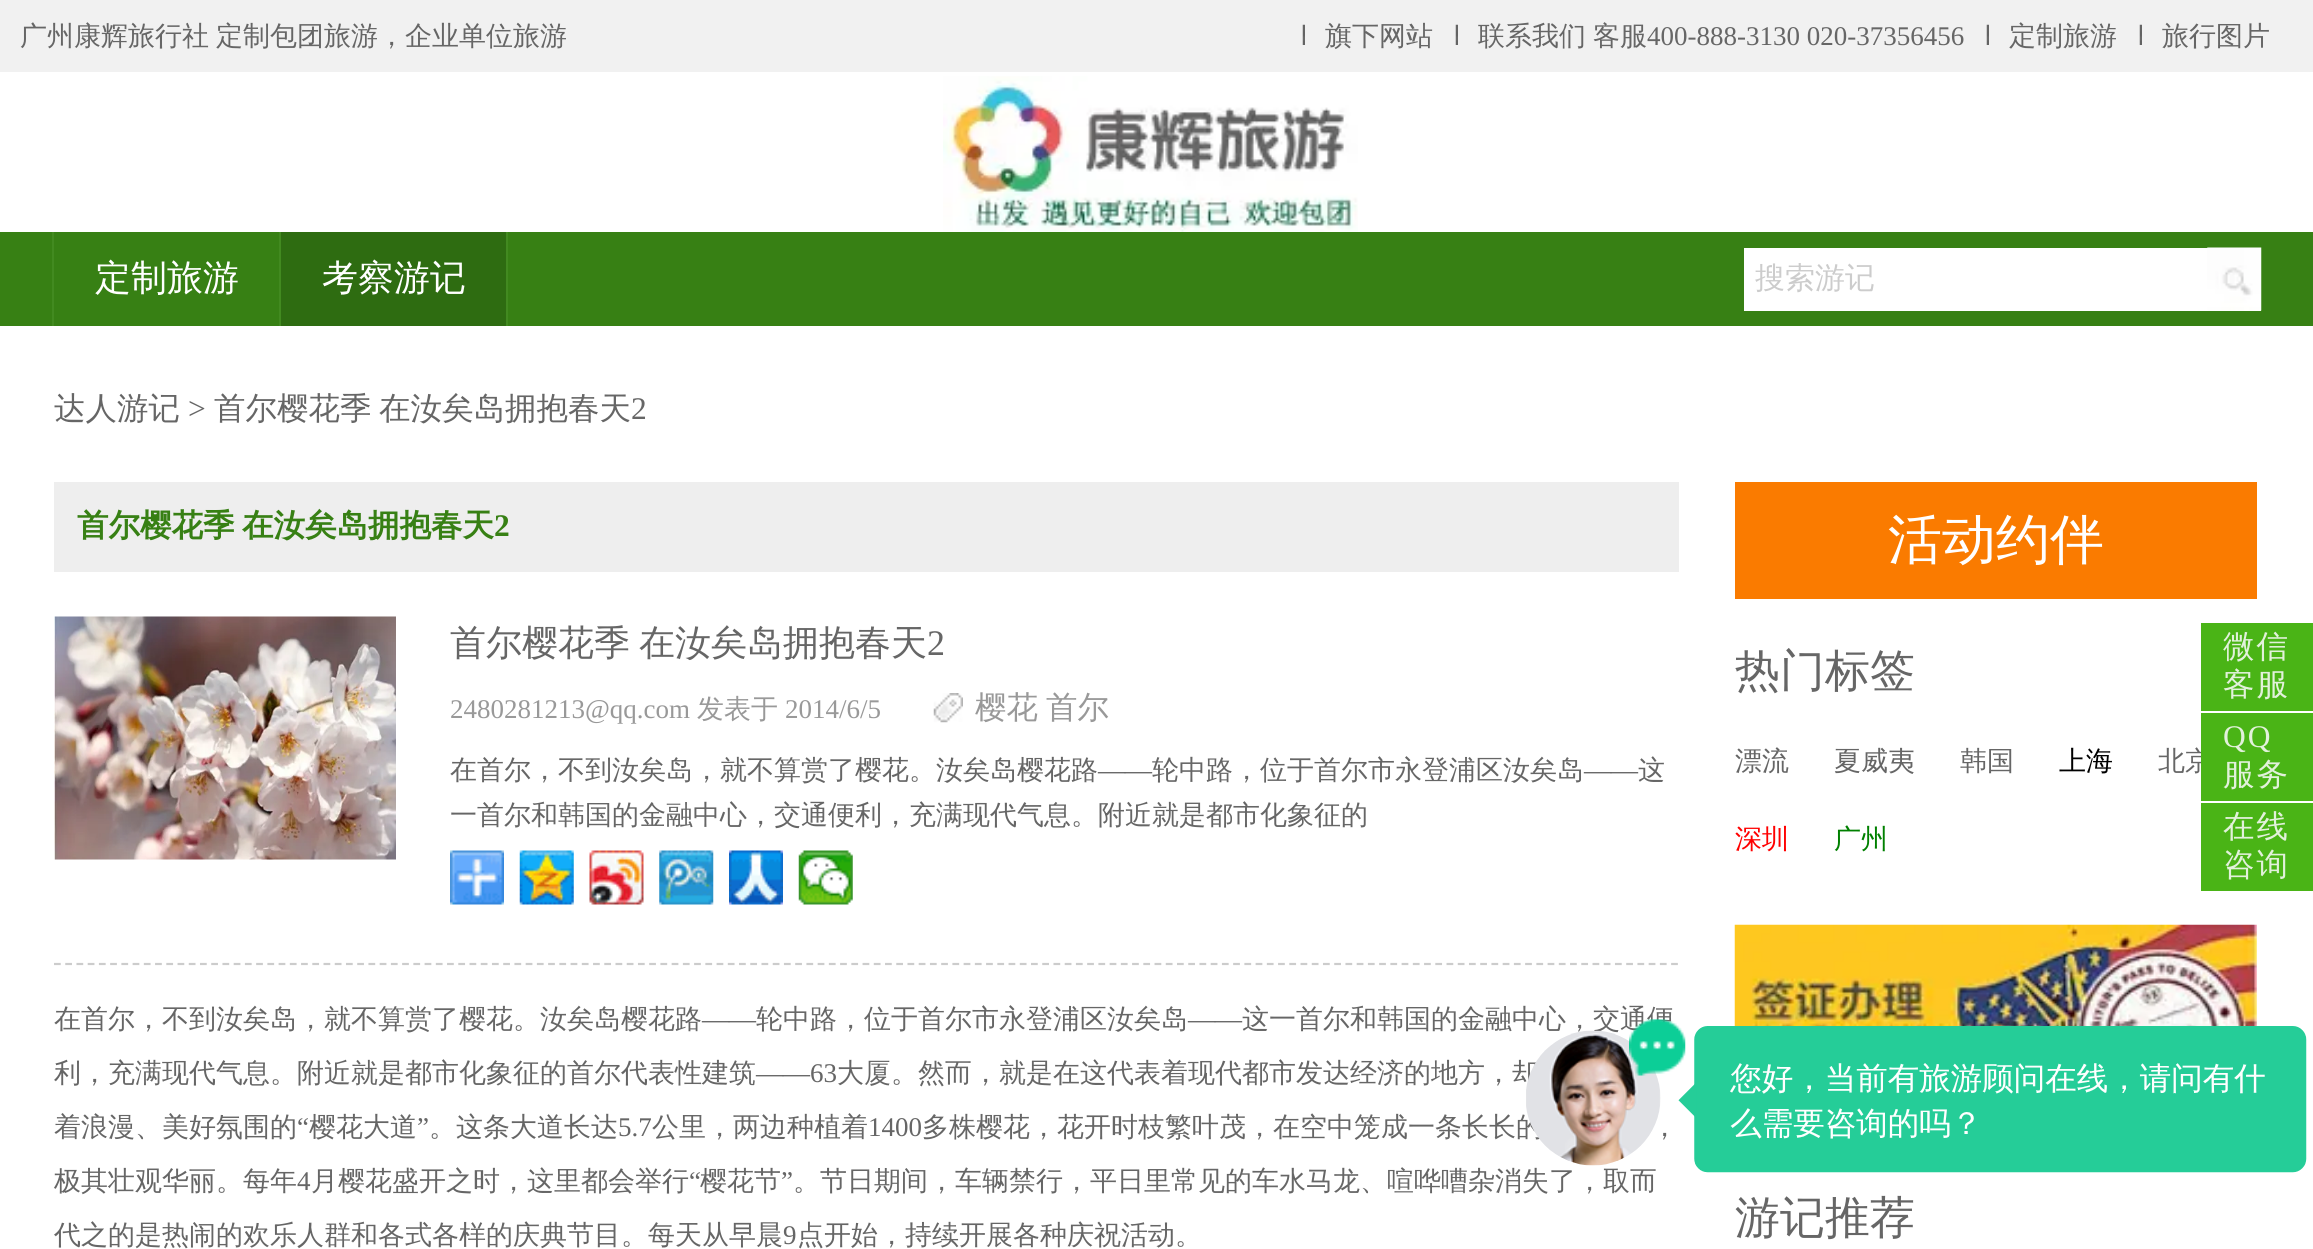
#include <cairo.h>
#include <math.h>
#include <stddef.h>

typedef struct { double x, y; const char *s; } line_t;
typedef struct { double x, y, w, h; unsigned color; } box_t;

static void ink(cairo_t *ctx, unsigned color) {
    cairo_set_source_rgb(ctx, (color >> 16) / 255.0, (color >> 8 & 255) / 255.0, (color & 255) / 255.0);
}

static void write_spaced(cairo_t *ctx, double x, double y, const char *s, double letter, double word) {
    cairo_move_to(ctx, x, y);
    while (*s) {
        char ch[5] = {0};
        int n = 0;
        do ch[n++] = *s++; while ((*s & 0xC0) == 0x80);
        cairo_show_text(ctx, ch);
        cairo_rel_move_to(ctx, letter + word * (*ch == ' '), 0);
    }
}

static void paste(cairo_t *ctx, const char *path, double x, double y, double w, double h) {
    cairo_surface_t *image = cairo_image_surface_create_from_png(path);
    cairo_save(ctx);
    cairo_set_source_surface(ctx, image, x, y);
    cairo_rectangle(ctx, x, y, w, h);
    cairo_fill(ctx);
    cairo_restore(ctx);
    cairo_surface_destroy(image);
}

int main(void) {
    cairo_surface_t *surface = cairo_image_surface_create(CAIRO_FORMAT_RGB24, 2313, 1249);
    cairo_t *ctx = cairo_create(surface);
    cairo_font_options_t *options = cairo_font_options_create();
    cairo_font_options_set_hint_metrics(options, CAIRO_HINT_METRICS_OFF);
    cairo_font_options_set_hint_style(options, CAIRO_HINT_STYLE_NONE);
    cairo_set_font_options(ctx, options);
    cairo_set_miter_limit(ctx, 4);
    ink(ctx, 0xFFFFFF);
    cairo_paint(ctx);
    ink(ctx, 0xF1F1F1);
    cairo_rectangle(ctx, 0, 0, 2313, 72);
    cairo_fill(ctx);
    cairo_select_font_face(ctx, "WenQuanYi Zen Hei Medium", CAIRO_FONT_SLANT_NORMAL, CAIRO_FONT_WEIGHT_NORMAL);
    cairo_set_font_size(ctx, 27);
    ink(ctx, 0x666666);
    cairo_move_to(ctx, 20, 45);
    cairo_show_text(ctx, "广州康辉旅行社");
    cairo_move_to(ctx, 216, 45);
    cairo_show_text(ctx, "定制包团旅游，企业单位旅游");
    paste(ctx, "media/1.png", 1302, 24, 3, 21);
    cairo_move_to(ctx, 1325, 45);
    cairo_show_text(ctx, "旗下网站");
    paste(ctx, "media/1.png", 1455, 24, 3, 21);
    cairo_move_to(ctx, 1478, 45);
    cairo_show_text(ctx, "联系我们");
    cairo_move_to(ctx, 1593, 45);
    cairo_show_text(ctx, "客服");
    cairo_select_font_face(ctx, "Liberation Serif", CAIRO_FONT_SLANT_NORMAL, CAIRO_FONT_WEIGHT_NORMAL);
    cairo_move_to(ctx, 1647, 45);
    cairo_show_text(ctx, "400-888-3130 020-37356456");
    paste(ctx, "media/1.png", 1986, 24, 3, 21);
    cairo_select_font_face(ctx, "WenQuanYi Zen Hei Medium", CAIRO_FONT_SLANT_NORMAL, CAIRO_FONT_WEIGHT_NORMAL);
    cairo_move_to(ctx, 2009, 45);
    cairo_show_text(ctx, "定制旅游");
    paste(ctx, "media/1.png", 2139, 24, 3, 21);
    cairo_move_to(ctx, 2162, 45);
    cairo_show_text(ctx, "旅行图片");
    paste(ctx, "media/2.png", 943, 76, 415, 156);
    {
        static const box_t items[] = {
            {0, 232, 2313, 94, 0x378014},
            {52, 232, 2, 94, 0x428A20},
            {279, 232, 2, 94, 0x428A20},
        };
        for (size_t i = 0; i < sizeof items / sizeof *items; i++) {
            ink(ctx, items[i].color);
            cairo_rectangle(ctx, items[i].x, items[i].y, items[i].w, items[i].h);
            cairo_fill(ctx);
        }
    }
    cairo_set_font_size(ctx, 36);
    ink(ctx, 0xFFFFFF);
    cairo_move_to(ctx, 95, 290);
    cairo_show_text(ctx, "定制旅游");
    ink(ctx, 0x428A20);
    cairo_rectangle(ctx, 506, 232, 2, 94);
    cairo_fill(ctx);
    ink(ctx, 0x2E6C11);
    cairo_rectangle(ctx, 281, 232, 225, 94);
    cairo_fill(ctx);
    ink(ctx, 0xFFFFFF);
    cairo_move_to(ctx, 322, 290);
    cairo_show_text(ctx, "考察游记");
    cairo_rectangle(ctx, 1744, 248, 517, 63);
    cairo_fill(ctx);
    cairo_set_font_size(ctx, 30);
    ink(ctx, 0xCCCCCC);
    cairo_move_to(ctx, 1755, 288);
    cairo_show_text(ctx, "搜索游记");
    paste(ctx, "media/3.png", 2207, 247, 55, 64);
    cairo_set_font_size(ctx, 31.5);
    ink(ctx, 0x666666);
    cairo_move_to(ctx, 54, 419);
    cairo_show_text(ctx, "达人游记");
    cairo_select_font_face(ctx, "Liberation Serif", CAIRO_FONT_SLANT_NORMAL, CAIRO_FONT_WEIGHT_NORMAL);
    cairo_move_to(ctx, 188, 419);
    cairo_show_text(ctx, ">");
    cairo_select_font_face(ctx, "WenQuanYi Zen Hei Medium", CAIRO_FONT_SLANT_NORMAL, CAIRO_FONT_WEIGHT_NORMAL);
    cairo_move_to(ctx, 214, 419);
    cairo_show_text(ctx, "首尔樱花季");
    cairo_move_to(ctx, 379, 419);
    cairo_show_text(ctx, "在汝矣岛拥抱春天");
    cairo_select_font_face(ctx, "Liberation Serif", CAIRO_FONT_SLANT_NORMAL, CAIRO_FONT_WEIGHT_NORMAL);
    cairo_move_to(ctx, 631, 419);
    cairo_show_text(ctx, "2");
    ink(ctx, 0xEEEEEE);
    cairo_rectangle(ctx, 54, 482, 1625, 90);
    cairo_fill(ctx);
    cairo_select_font_face(ctx, "WenQuanYi Zen Hei", CAIRO_FONT_SLANT_NORMAL, CAIRO_FONT_WEIGHT_BOLD);
    ink(ctx, 0x378014);
    cairo_move_to(ctx, 77, 536);
    cairo_show_text(ctx, "首尔樱花季");
    cairo_move_to(ctx, 242, 536);
    cairo_show_text(ctx, "在汝矣岛拥抱春天");
    cairo_select_font_face(ctx, "Liberation Serif", CAIRO_FONT_SLANT_NORMAL, CAIRO_FONT_WEIGHT_BOLD);
    cairo_move_to(ctx, 494, 536);
    cairo_show_text(ctx, "2");
    cairo_new_path(ctx);
    cairo_move_to(ctx, 54, 964);
    cairo_line_to(ctx, 1678.5, 964);
    ink(ctx, 0xCCCCCC);
    cairo_set_line_width(ctx, 2.2);
    cairo_set_dash(ctx, (double[]){6.75, 4.48}, 2, 0);
    cairo_stroke(ctx);
    paste(ctx, "media/4.png", 54, 616, 342, 244);
    cairo_select_font_face(ctx, "WenQuanYi Zen Hei Medium", CAIRO_FONT_SLANT_NORMAL, CAIRO_FONT_WEIGHT_NORMAL);
    cairo_set_font_size(ctx, 36);
    ink(ctx, 0x666666);
    cairo_move_to(ctx, 450, 655);
    cairo_show_text(ctx, "首尔樱花季");
    cairo_move_to(ctx, 639, 655);
    cairo_show_text(ctx, "在汝矣岛拥抱春天");
    cairo_select_font_face(ctx, "Liberation Serif", CAIRO_FONT_SLANT_NORMAL, CAIRO_FONT_WEIGHT_NORMAL);
    cairo_move_to(ctx, 927, 655);
    cairo_show_text(ctx, "2");
    cairo_set_font_size(ctx, 27);
    ink(ctx, 0x999999);
    cairo_move_to(ctx, 450, 718);
    cairo_show_text(ctx, "2480281213@qq.com");
    cairo_select_font_face(ctx, "WenQuanYi Zen Hei Medium", CAIRO_FONT_SLANT_NORMAL, CAIRO_FONT_WEIGHT_NORMAL);
    cairo_move_to(ctx, 697, 718);
    cairo_show_text(ctx, "发表于");
    cairo_select_font_face(ctx, "Liberation Serif", CAIRO_FONT_SLANT_NORMAL, CAIRO_FONT_WEIGHT_NORMAL);
    cairo_move_to(ctx, 785, 718);
    cairo_show_text(ctx, "2014/6/5");
    paste(ctx, "media/5.png", 933, 693, 30, 30);
    cairo_select_font_face(ctx, "WenQuanYi Zen Hei Medium", CAIRO_FONT_SLANT_NORMAL, CAIRO_FONT_WEIGHT_NORMAL);
    cairo_set_font_size(ctx, 31.5);
    cairo_move_to(ctx, 975, 718);
    cairo_show_text(ctx, "樱花");
    cairo_move_to(ctx, 1046, 718);
    cairo_show_text(ctx, "首尔");
    cairo_set_font_size(ctx, 27);
    ink(ctx, 0x666666);
    cairo_move_to(ctx, 450, 779);
    cairo_show_text(ctx, "在首尔，不到汝矣岛，就不算赏了樱花。汝矣岛樱花路");
    cairo_select_font_face(ctx, "Liberation Serif", CAIRO_FONT_SLANT_NORMAL, CAIRO_FONT_WEIGHT_NORMAL);
    cairo_move_to(ctx, 1098, 779);
    cairo_show_text(ctx, "——");
    cairo_select_font_face(ctx, "WenQuanYi Zen Hei Medium", CAIRO_FONT_SLANT_NORMAL, CAIRO_FONT_WEIGHT_NORMAL);
    cairo_move_to(ctx, 1152, 779);
    cairo_show_text(ctx, "轮中路，位于首尔市永登浦区汝矣岛");
    cairo_select_font_face(ctx, "Liberation Serif", CAIRO_FONT_SLANT_NORMAL, CAIRO_FONT_WEIGHT_NORMAL);
    cairo_move_to(ctx, 1584, 779);
    cairo_show_text(ctx, "——");
    cairo_select_font_face(ctx, "WenQuanYi Zen Hei Medium", CAIRO_FONT_SLANT_NORMAL, CAIRO_FONT_WEIGHT_NORMAL);
    cairo_move_to(ctx, 1638, 779);
    cairo_show_text(ctx, "这");
    cairo_move_to(ctx, 450, 824);
    cairo_show_text(ctx, "一首尔和韩国的金融中心，交通便利，充满现代气息。附近就是都市化象征的");
    paste(ctx, "media/6.png", 450, 850, 54, 55);
    paste(ctx, "media/7.png", 519, 850, 55, 55);
    paste(ctx, "media/8.png", 589, 850, 55, 55);
    paste(ctx, "media/9.png", 659, 850, 55, 55);
    paste(ctx, "media/10.png", 729, 850, 54, 55);
    paste(ctx, "media/11.png", 798, 850, 55, 55);
    cairo_move_to(ctx, 54, 1028);
    cairo_show_text(ctx, "在首尔，不到汝矣岛，就不算赏了樱花。汝矣岛樱花路");
    cairo_select_font_face(ctx, "Liberation Serif", CAIRO_FONT_SLANT_NORMAL, CAIRO_FONT_WEIGHT_NORMAL);
    cairo_move_to(ctx, 702, 1028);
    cairo_show_text(ctx, "——");
    cairo_select_font_face(ctx, "WenQuanYi Zen Hei Medium", CAIRO_FONT_SLANT_NORMAL, CAIRO_FONT_WEIGHT_NORMAL);
    cairo_move_to(ctx, 756, 1028);
    cairo_show_text(ctx, "轮中路，位于首尔市永登浦区汝矣岛");
    cairo_select_font_face(ctx, "Liberation Serif", CAIRO_FONT_SLANT_NORMAL, CAIRO_FONT_WEIGHT_NORMAL);
    cairo_move_to(ctx, 1188, 1028);
    cairo_show_text(ctx, "——");
    cairo_select_font_face(ctx, "WenQuanYi Zen Hei Medium", CAIRO_FONT_SLANT_NORMAL, CAIRO_FONT_WEIGHT_NORMAL);
    cairo_move_to(ctx, 1242, 1028);
    cairo_show_text(ctx, "这一首尔和韩国的金融中心，交通便");
    cairo_move_to(ctx, 54, 1082);
    cairo_show_text(ctx, "利，充满现代气息。附近就是都市化象征的首尔代表性建筑");
    cairo_select_font_face(ctx, "Liberation Serif", CAIRO_FONT_SLANT_NORMAL, CAIRO_FONT_WEIGHT_NORMAL);
    cairo_move_to(ctx, 756, 1082);
    cairo_show_text(ctx, "——63");
    cairo_select_font_face(ctx, "WenQuanYi Zen Hei Medium", CAIRO_FONT_SLANT_NORMAL, CAIRO_FONT_WEIGHT_NORMAL);
    cairo_move_to(ctx, 837, 1082);
    cairo_show_text(ctx, "大厦。然而，就是在这代表着现代都市发达经济的地方，却");
    cairo_move_to(ctx, 54, 1136);
    cairo_show_text(ctx, "着浪漫、美好氛围的");
    cairo_select_font_face(ctx, "Liberation Serif", CAIRO_FONT_SLANT_NORMAL, CAIRO_FONT_WEIGHT_NORMAL);
    cairo_move_to(ctx, 297, 1136);
    cairo_show_text(ctx, "“");
    cairo_select_font_face(ctx, "WenQuanYi Zen Hei Medium", CAIRO_FONT_SLANT_NORMAL, CAIRO_FONT_WEIGHT_NORMAL);
    cairo_move_to(ctx, 309, 1136);
    cairo_show_text(ctx, "樱花大道");
    cairo_select_font_face(ctx, "Liberation Serif", CAIRO_FONT_SLANT_NORMAL, CAIRO_FONT_WEIGHT_NORMAL);
    cairo_move_to(ctx, 417, 1136);
    cairo_show_text(ctx, "”");
    cairo_select_font_face(ctx, "WenQuanYi Zen Hei Medium", CAIRO_FONT_SLANT_NORMAL, CAIRO_FONT_WEIGHT_NORMAL);
    cairo_move_to(ctx, 429, 1136);
    cairo_show_text(ctx, "。这条大道长达");
    cairo_select_font_face(ctx, "Liberation Serif", CAIRO_FONT_SLANT_NORMAL, CAIRO_FONT_WEIGHT_NORMAL);
    cairo_move_to(ctx, 618, 1136);
    cairo_show_text(ctx, "5.7");
    cairo_select_font_face(ctx, "WenQuanYi Zen Hei Medium", CAIRO_FONT_SLANT_NORMAL, CAIRO_FONT_WEIGHT_NORMAL);
    cairo_move_to(ctx, 652, 1136);
    cairo_show_text(ctx, "公里，两边种植着");
    cairo_select_font_face(ctx, "Liberation Serif", CAIRO_FONT_SLANT_NORMAL, CAIRO_FONT_WEIGHT_NORMAL);
    cairo_move_to(ctx, 868, 1136);
    cairo_show_text(ctx, "1400");
    cairo_select_font_face(ctx, "WenQuanYi Zen Hei Medium", CAIRO_FONT_SLANT_NORMAL, CAIRO_FONT_WEIGHT_NORMAL);
    {
        static const line_t items[] = {
            {922, 1136, "多株樱花，花开时枝繁叶茂，在空中笼成一条长长的"},
            {1651, 1136, "，"},
            {54, 1190, "极其壮观华丽。每年"},
        };
        for (size_t i = 0; i < sizeof items / sizeof *items; i++) {
            cairo_move_to(ctx, items[i].x, items[i].y);
            cairo_show_text(ctx, items[i].s);
        }
    }
    cairo_select_font_face(ctx, "Liberation Serif", CAIRO_FONT_SLANT_NORMAL, CAIRO_FONT_WEIGHT_NORMAL);
    cairo_move_to(ctx, 297, 1190);
    cairo_show_text(ctx, "4");
    cairo_select_font_face(ctx, "WenQuanYi Zen Hei Medium", CAIRO_FONT_SLANT_NORMAL, CAIRO_FONT_WEIGHT_NORMAL);
    cairo_move_to(ctx, 311, 1190);
    cairo_show_text(ctx, "月樱花盛开之时，这里都会举行");
    cairo_select_font_face(ctx, "Liberation Serif", CAIRO_FONT_SLANT_NORMAL, CAIRO_FONT_WEIGHT_NORMAL);
    cairo_move_to(ctx, 689, 1190);
    cairo_show_text(ctx, "“");
    cairo_select_font_face(ctx, "WenQuanYi Zen Hei Medium", CAIRO_FONT_SLANT_NORMAL, CAIRO_FONT_WEIGHT_NORMAL);
    cairo_move_to(ctx, 700, 1190);
    cairo_show_text(ctx, "樱花节");
    cairo_select_font_face(ctx, "Liberation Serif", CAIRO_FONT_SLANT_NORMAL, CAIRO_FONT_WEIGHT_NORMAL);
    cairo_move_to(ctx, 781, 1190);
    cairo_show_text(ctx, "”");
    cairo_select_font_face(ctx, "WenQuanYi Zen Hei Medium", CAIRO_FONT_SLANT_NORMAL, CAIRO_FONT_WEIGHT_NORMAL);
    cairo_move_to(ctx, 793, 1190);
    cairo_show_text(ctx, "。节日期间，车辆禁行，平日里常见的车水马龙、喧哗嘈杂消失了，取而");
    cairo_move_to(ctx, 54, 1244);
    cairo_show_text(ctx, "代之的是热闹的欢乐人群和各式各样的庆典节目。每天从早晨");
    cairo_select_font_face(ctx, "Liberation Serif", CAIRO_FONT_SLANT_NORMAL, CAIRO_FONT_WEIGHT_NORMAL);
    cairo_move_to(ctx, 783, 1244);
    cairo_show_text(ctx, "9");
    cairo_select_font_face(ctx, "WenQuanYi Zen Hei Medium", CAIRO_FONT_SLANT_NORMAL, CAIRO_FONT_WEIGHT_NORMAL);
    cairo_move_to(ctx, 797, 1244);
    cairo_show_text(ctx, "点开始，持续开展各种庆祝活动。");
    ink(ctx, 0xFA7B00);
    cairo_rectangle(ctx, 1735, 482, 522, 117);
    cairo_fill(ctx);
    cairo_set_font_size(ctx, 54);
    ink(ctx, 0xFFFFFF);
    cairo_move_to(ctx, 1888, 558);
    cairo_show_text(ctx, "活动约伴");
    cairo_set_font_size(ctx, 45);
    ink(ctx, 0x666666);
    cairo_move_to(ctx, 1735, 686);
    cairo_show_text(ctx, "热门标签");
    cairo_set_font_size(ctx, 27);
    {
        static const line_t items[] = {
            {1735, 770, "漂流"},
            {1834, 770, "夏威夷"},
            {1960, 770, "韩国"},
        };
        for (size_t i = 0; i < sizeof items / sizeof *items; i++) {
            cairo_move_to(ctx, items[i].x, items[i].y);
            cairo_show_text(ctx, items[i].s);
        }
    }
    ink(ctx, 0x000000);
    cairo_move_to(ctx, 2059, 770);
    cairo_show_text(ctx, "上海");
    ink(ctx, 0x666666);
    cairo_move_to(ctx, 2158, 770);
    cairo_show_text(ctx, "北京");
    ink(ctx, 0xFF0000);
    cairo_move_to(ctx, 1735, 848);
    cairo_show_text(ctx, "深圳");
    ink(ctx, 0x008000);
    cairo_move_to(ctx, 1834, 848);
    cairo_show_text(ctx, "广州");
    paste(ctx, "media/12.png", 1734, 924, 523, 102);
    cairo_set_font_size(ctx, 45);
    ink(ctx, 0x666666);
    cairo_move_to(ctx, 1735, 1233);
    cairo_show_text(ctx, "游记推荐");
    ink(ctx, 0x4AB416);
    cairo_rectangle(ctx, 2201, 623, 112, 88);
    cairo_fill(ctx);
    cairo_set_font_size(ctx, 31.5);
    ink(ctx, 0xE2F1DB);
    write_spaced(ctx, 2223, 657, "微信", 2, 0);
    write_spaced(ctx, 2223, 695, "客服", 2, 0);
    ink(ctx, 0x4AB416);
    cairo_rectangle(ctx, 2201, 713, 112, 88);
    cairo_fill(ctx);
    cairo_select_font_face(ctx, "Liberation Serif", CAIRO_FONT_SLANT_NORMAL, CAIRO_FONT_WEIGHT_NORMAL);
    ink(ctx, 0xE2F1DB);
    write_spaced(ctx, 2223, 747, "QQ", 2, 0);
    cairo_select_font_face(ctx, "WenQuanYi Zen Hei Medium", CAIRO_FONT_SLANT_NORMAL, CAIRO_FONT_WEIGHT_NORMAL);
    write_spaced(ctx, 2223, 785, "服务", 2, 0);
    ink(ctx, 0x4AB416);
    cairo_rectangle(ctx, 2201, 803, 112, 88);
    cairo_fill(ctx);
    ink(ctx, 0xE2F1DB);
    write_spaced(ctx, 2223, 837, "在线", 2, 0);
    write_spaced(ctx, 2223, 875, "咨询", 2, 0);
    paste(ctx, "media/13.png", 1526, 1019, 781, 154);
    cairo_surface_write_to_png(surface, "image.png");
    cairo_font_options_destroy(options);
    cairo_destroy(ctx);
    cairo_surface_destroy(surface);
    return 0;
}
